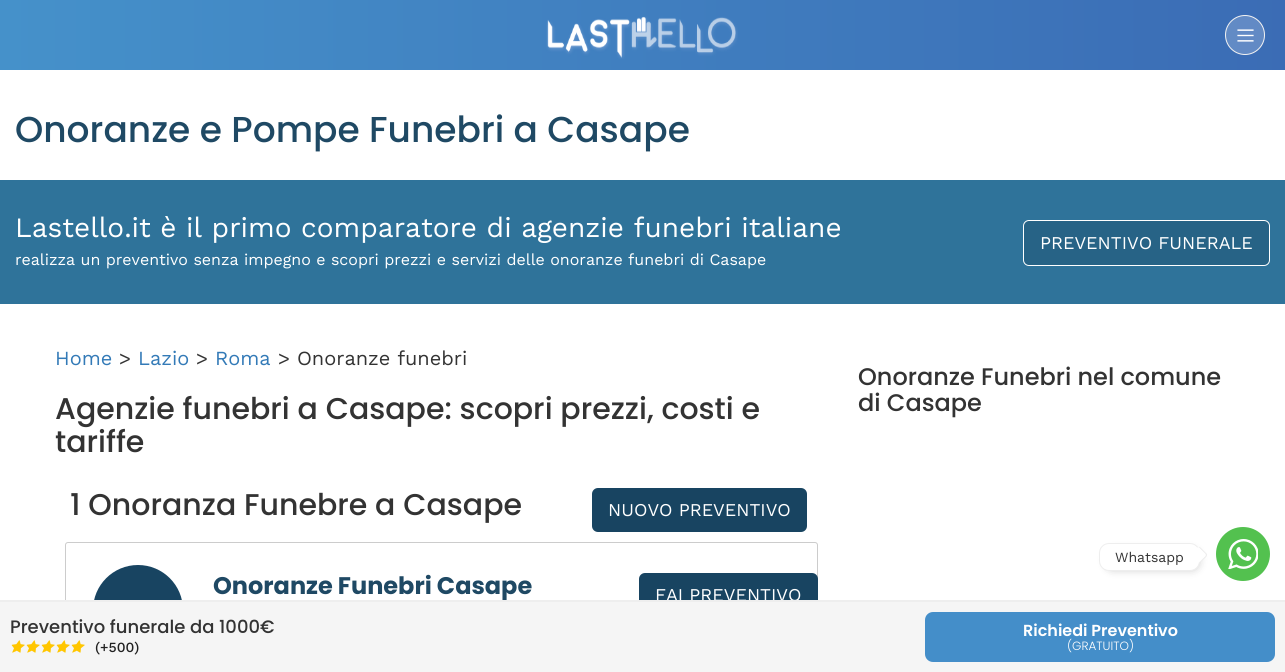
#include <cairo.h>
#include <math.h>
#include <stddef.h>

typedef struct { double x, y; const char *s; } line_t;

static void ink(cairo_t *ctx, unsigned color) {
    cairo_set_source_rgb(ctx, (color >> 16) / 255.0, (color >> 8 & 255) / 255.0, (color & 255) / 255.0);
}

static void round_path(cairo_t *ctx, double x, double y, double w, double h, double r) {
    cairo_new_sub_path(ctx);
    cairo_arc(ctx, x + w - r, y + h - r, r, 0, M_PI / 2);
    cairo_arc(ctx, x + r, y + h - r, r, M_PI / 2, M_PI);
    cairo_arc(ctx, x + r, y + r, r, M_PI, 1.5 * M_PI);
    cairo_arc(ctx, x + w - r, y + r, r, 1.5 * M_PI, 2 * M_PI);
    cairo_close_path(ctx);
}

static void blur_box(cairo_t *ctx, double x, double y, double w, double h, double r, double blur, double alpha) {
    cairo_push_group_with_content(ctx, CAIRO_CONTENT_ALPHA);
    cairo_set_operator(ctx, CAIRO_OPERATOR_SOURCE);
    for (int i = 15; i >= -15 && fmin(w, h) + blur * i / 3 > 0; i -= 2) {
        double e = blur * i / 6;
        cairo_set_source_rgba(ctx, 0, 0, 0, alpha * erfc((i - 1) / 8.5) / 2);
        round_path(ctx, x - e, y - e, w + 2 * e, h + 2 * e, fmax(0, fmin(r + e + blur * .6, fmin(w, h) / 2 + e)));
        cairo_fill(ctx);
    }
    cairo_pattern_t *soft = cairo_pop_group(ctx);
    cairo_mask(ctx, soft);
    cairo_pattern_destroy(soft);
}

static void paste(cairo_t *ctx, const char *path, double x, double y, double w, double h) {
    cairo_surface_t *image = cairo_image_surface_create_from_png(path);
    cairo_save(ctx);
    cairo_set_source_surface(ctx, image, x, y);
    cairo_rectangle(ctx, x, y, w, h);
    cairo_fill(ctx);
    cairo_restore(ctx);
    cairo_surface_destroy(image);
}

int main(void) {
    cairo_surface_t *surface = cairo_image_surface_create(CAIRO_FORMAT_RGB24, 1285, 672);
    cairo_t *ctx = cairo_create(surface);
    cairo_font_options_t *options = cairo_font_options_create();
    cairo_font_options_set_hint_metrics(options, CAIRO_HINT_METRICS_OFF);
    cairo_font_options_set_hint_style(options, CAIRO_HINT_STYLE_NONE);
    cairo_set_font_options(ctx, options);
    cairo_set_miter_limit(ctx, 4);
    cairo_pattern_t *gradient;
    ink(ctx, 0xFFFFFF);
    cairo_paint(ctx);
    gradient = cairo_pattern_create_linear(1285, 35, 0, 35);
    cairo_pattern_add_color_stop_rgba(gradient, 0, 0.231, 0.424, 0.71, 1);
    cairo_pattern_add_color_stop_rgba(gradient, 1, 0.271, 0.569, 0.792, 1);
    cairo_set_source(ctx, gradient);
    cairo_pattern_destroy(gradient);
    cairo_rectangle(ctx, 0, 0, 1285, 70);
    cairo_fill(ctx);
    paste(ctx, "media/1.png", 546, 16, 192, 43);
    paste(ctx, "media/2.png", 1225, 15, 40, 40);
    cairo_select_font_face(ctx, "Poppins Medium", CAIRO_FONT_SLANT_NORMAL, CAIRO_FONT_WEIGHT_NORMAL);
    cairo_set_font_size(ctx, 36);
    ink(ctx, 0x1F4964);
    cairo_move_to(ctx, 15, 142);
    cairo_show_text(ctx, "Onoranze e Pompe Funebri a Casape");
    ink(ctx, 0x2F739A);
    cairo_rectangle(ctx, 0, 180, 1285, 124);
    cairo_fill(ctx);
    cairo_select_font_face(ctx, "Work Sans", CAIRO_FONT_SLANT_NORMAL, CAIRO_FONT_WEIGHT_NORMAL);
    cairo_set_font_size(ctx, 28);
    ink(ctx, 0xFFFFFF);
    cairo_move_to(ctx, 15, 237);
    cairo_show_text(ctx, "Lastello.it è il primo comparatore di agenzie funebri italiane");
    cairo_set_font_size(ctx, 16);
    cairo_move_to(ctx, 15, 265);
    cairo_show_text(ctx, "realizza un preventivo senza impegno e scopri prezzi e servizi delle onoranze funebri di Casape");
    ink(ctx, 0x276386);
    round_path(ctx, 1023.5, 220.5, 246, 45, 5.5);
    cairo_fill_preserve(ctx);
    ink(ctx, 0xFFFFFF);
    cairo_set_line_width(ctx, 1);
    cairo_stroke(ctx);
    cairo_set_font_size(ctx, 18);
    cairo_move_to(ctx, 1040, 249);
    cairo_show_text(ctx, "PREVENTIVO FUNERALE");
    cairo_set_font_size(ctx, 20);
    ink(ctx, 0x337AB7);
    cairo_move_to(ctx, 55, 365);
    cairo_show_text(ctx, "Home");
    ink(ctx, 0x333333);
    cairo_move_to(ctx, 119, 365);
    cairo_show_text(ctx, ">");
    ink(ctx, 0x337AB7);
    cairo_move_to(ctx, 138, 365);
    cairo_show_text(ctx, "Lazio");
    ink(ctx, 0x333333);
    cairo_move_to(ctx, 196, 365);
    cairo_show_text(ctx, ">");
    ink(ctx, 0x337AB7);
    cairo_move_to(ctx, 215, 365);
    cairo_show_text(ctx, "Roma");
    ink(ctx, 0x333333);
    cairo_move_to(ctx, 278, 365);
    cairo_show_text(ctx, "> Onoranze funebri");
    cairo_select_font_face(ctx, "Poppins Medium", CAIRO_FONT_SLANT_NORMAL, CAIRO_FONT_WEIGHT_NORMAL);
    cairo_set_font_size(ctx, 30);
    {
        static const line_t items[] = {
            {55, 419, "Agenzie funebri a Casape: scopri prezzi, costi e"},
            {55, 452, "tariffe"},
            {70, 515, "1 Onoranza Funebre a Casape"},
        };
        for (size_t i = 0; i < sizeof items / sizeof *items; i++) {
            cairo_move_to(ctx, items[i].x, items[i].y);
            cairo_show_text(ctx, items[i].s);
        }
    }
    ink(ctx, 0x184461);
    round_path(ctx, 592, 488, 215, 44, 6);
    cairo_fill(ctx);
    cairo_select_font_face(ctx, "Work Sans", CAIRO_FONT_SLANT_NORMAL, CAIRO_FONT_WEIGHT_NORMAL);
    cairo_set_font_size(ctx, 18);
    ink(ctx, 0xFFFFFF);
    cairo_move_to(ctx, 608, 516);
    cairo_show_text(ctx, "NUOVO PREVENTIVO");
    round_path(ctx, 65.5, 542.5, 752, 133, 2.5);
    ink(ctx, 0xCCCCCC);
    cairo_stroke(ctx);
    ink(ctx, 0x184461);
    cairo_arc(ctx, 138, 610, 45, 0, 2 * M_PI);
    cairo_fill(ctx);
    cairo_select_font_face(ctx, "Poppins", CAIRO_FONT_SLANT_NORMAL, CAIRO_FONT_WEIGHT_BOLD);
    cairo_set_font_size(ctx, 24);
    ink(ctx, 0x1F4964);
    cairo_move_to(ctx, 213, 594);
    cairo_show_text(ctx, "Onoranze Funebri Casape");
    ink(ctx, 0x184461);
    round_path(ctx, 639, 573, 179, 44, 6);
    cairo_fill(ctx);
    cairo_select_font_face(ctx, "Work Sans", CAIRO_FONT_SLANT_NORMAL, CAIRO_FONT_WEIGHT_NORMAL);
    cairo_set_font_size(ctx, 18);
    ink(ctx, 0xFFFFFF);
    cairo_move_to(ctx, 655, 601);
    cairo_show_text(ctx, "FAI PREVENTIVO");
    cairo_select_font_face(ctx, "Poppins Medium", CAIRO_FONT_SLANT_NORMAL, CAIRO_FONT_WEIGHT_NORMAL);
    cairo_set_font_size(ctx, 24);
    ink(ctx, 0x333333);
    cairo_move_to(ctx, 858, 385);
    cairo_show_text(ctx, "Onoranze Funebri nel comune");
    cairo_move_to(ctx, 858, 411);
    cairo_show_text(ctx, "di Casape");
    ink(ctx, 0x53C14F);
    cairo_new_path(ctx);
    cairo_arc(ctx, 1243, 554, 27, 0, 2 * M_PI);
    cairo_fill(ctx);
    ink(ctx, 0x000000);
    blur_box(ctx, 1108, 552, 89, 16, 4, 5, 0.3);
    ink(ctx, 0xFFFFFF);
    round_path(ctx, 1099.5, 543.5, 100, 27, 9.5);
    cairo_fill_preserve(ctx);
    ink(ctx, 0xEEEEEE);
    cairo_stroke(ctx);
    cairo_select_font_face(ctx, "Work Sans", CAIRO_FONT_SLANT_NORMAL, CAIRO_FONT_WEIGHT_NORMAL);
    cairo_set_font_size(ctx, 14);
    ink(ctx, 0x333333);
    cairo_move_to(ctx, 1115, 562);
    cairo_show_text(ctx, "Whatsapp");
    ink(ctx, 0xEEEEEE);
    cairo_new_path(ctx);
    cairo_move_to(ctx, 1201, 548);
    cairo_curve_to(ctx, 1200, 547, 1199.5, 547, 1198.5, 547.5);
    cairo_line_to(ctx, 1202, 551);
    cairo_curve_to(ctx, 1206.5, 555, 1206.5, 555, 1202, 559);
    cairo_line_to(ctx, 1198.5, 562.5);
    cairo_curve_to(ctx, 1200.5, 563.5, 1202.5, 560.5, 1204, 559);
    cairo_curve_to(ctx, 1205, 558, 1208.5, 555.5, 1206.5, 553.5);
    cairo_close_path(ctx);
    cairo_fill(ctx);
    ink(ctx, 0xFFFFFF);
    cairo_new_path(ctx);
    cairo_move_to(ctx, 1199.5, 548);
    cairo_line_to(ctx, 1205, 553.5);
    cairo_curve_to(ctx, 1206, 554.5, 1206, 555.5, 1205, 556.5);
    cairo_line_to(ctx, 1199.5, 562);
    cairo_curve_to(ctx, 1198.5, 563, 1197.5, 563, 1196.5, 562);
    cairo_curve_to(ctx, 1192.5, 558, 1192.5, 552, 1196.5, 548);
    cairo_curve_to(ctx, 1197.5, 547, 1198.5, 547, 1199.5, 548);
    cairo_close_path(ctx);
    cairo_fill(ctx);
    paste(ctx, "media/3.png", 1228, 539, 30, 30);
    ink(ctx, 0xF5F5F5);
    cairo_rectangle(ctx, 0, 602, 1285, 70);
    cairo_fill(ctx);
    ink(ctx, 0xEEEEEE);
    cairo_rectangle(ctx, 0, 600, 1285, 2);
    cairo_fill(ctx);
    cairo_select_font_face(ctx, "Poppins Medium", CAIRO_FONT_SLANT_NORMAL, CAIRO_FONT_WEIGHT_NORMAL);
    cairo_set_font_size(ctx, 18);
    ink(ctx, 0x333333);
    cairo_move_to(ctx, 10, 633);
    cairo_show_text(ctx, "Preventivo funerale da 1000€");
    paste(ctx, "media/4.png", 11, 640, 14, 13);
    paste(ctx, "media/4.png", 26, 640, 14, 13);
    paste(ctx, "media/4.png", 41, 640, 14, 13);
    paste(ctx, "media/4.png", 56, 640, 14, 13);
    paste(ctx, "media/4.png", 71, 640, 14, 13);
    cairo_select_font_face(ctx, "Work Sans Medium", CAIRO_FONT_SLANT_NORMAL, CAIRO_FONT_WEIGHT_NORMAL);
    cairo_set_font_size(ctx, 14);
    ink(ctx, 0x222222);
    cairo_move_to(ctx, 95, 652);
    cairo_show_text(ctx, "(+500)");
    ink(ctx, 0x448EC9);
    round_path(ctx, 925, 612, 350, 50, 8);
    cairo_fill(ctx);
    cairo_select_font_face(ctx, "Poppins SemiBold", CAIRO_FONT_SLANT_NORMAL, CAIRO_FONT_WEIGHT_NORMAL);
    cairo_set_font_size(ctx, 16);
    ink(ctx, 0xFFFFFF);
    cairo_move_to(ctx, 1023, 636);
    cairo_show_text(ctx, "Richiedi Preventivo");
    cairo_select_font_face(ctx, "Poppins Light", CAIRO_FONT_SLANT_NORMAL, CAIRO_FONT_WEIGHT_NORMAL);
    cairo_set_font_size(ctx, 12);
    cairo_move_to(ctx, 1067, 650);
    cairo_show_text(ctx, "(GRATUITO)");
    cairo_surface_write_to_png(surface, "image.png");
    cairo_font_options_destroy(options);
    cairo_destroy(ctx);
    cairo_surface_destroy(surface);
    return 0;
}
